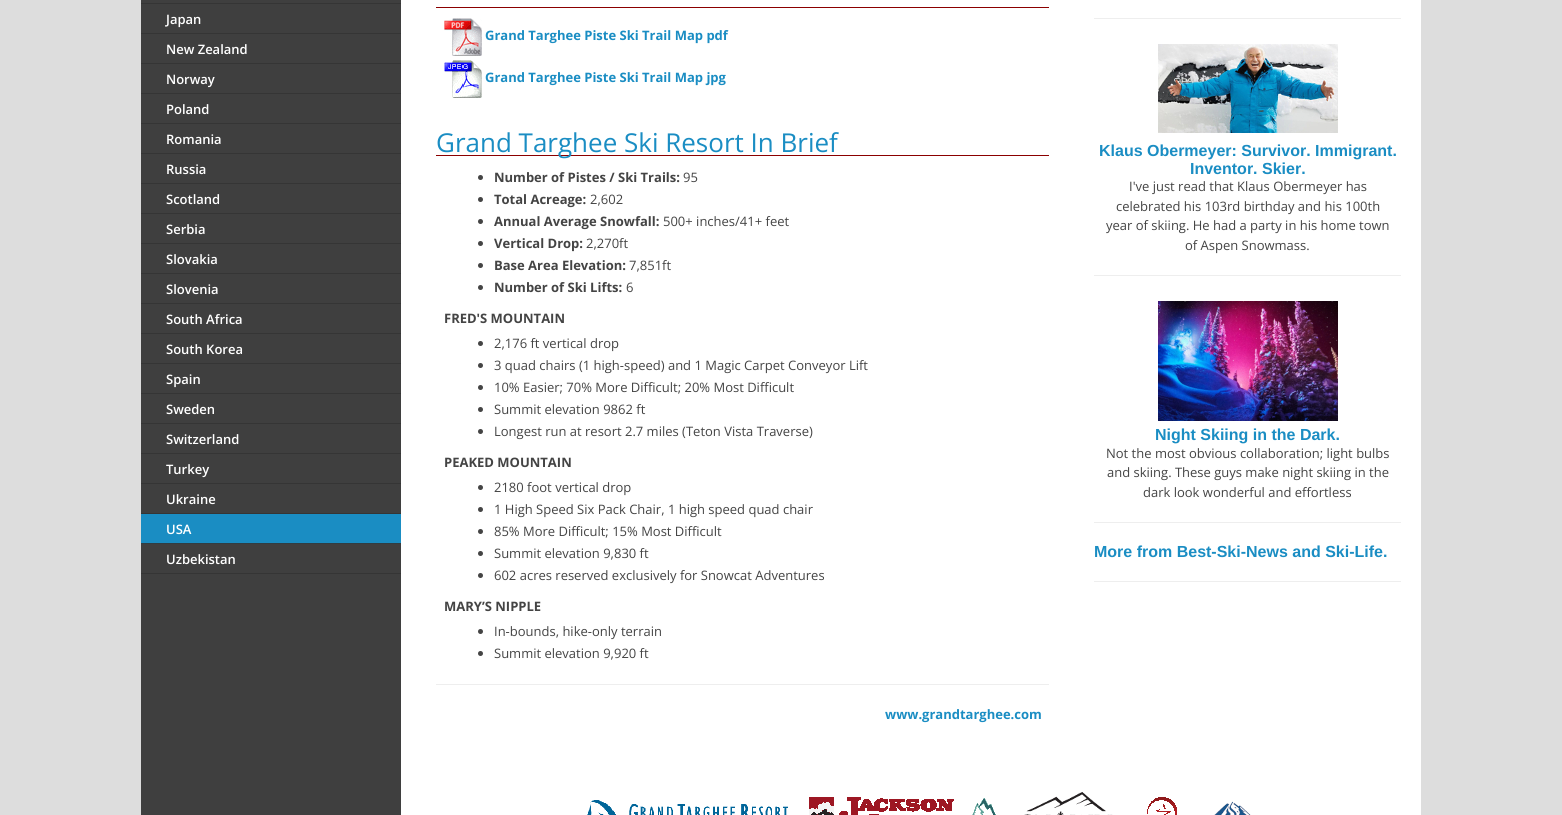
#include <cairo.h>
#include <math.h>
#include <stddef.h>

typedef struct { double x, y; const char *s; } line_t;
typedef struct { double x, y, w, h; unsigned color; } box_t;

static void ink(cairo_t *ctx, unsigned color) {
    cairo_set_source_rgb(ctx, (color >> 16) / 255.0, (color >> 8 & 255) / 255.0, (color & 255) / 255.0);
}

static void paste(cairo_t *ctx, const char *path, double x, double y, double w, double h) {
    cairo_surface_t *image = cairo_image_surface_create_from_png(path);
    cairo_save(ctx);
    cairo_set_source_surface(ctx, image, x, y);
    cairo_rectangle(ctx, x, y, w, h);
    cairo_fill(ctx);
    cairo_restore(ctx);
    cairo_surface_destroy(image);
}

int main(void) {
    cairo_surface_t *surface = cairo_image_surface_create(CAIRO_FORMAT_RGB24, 1562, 815);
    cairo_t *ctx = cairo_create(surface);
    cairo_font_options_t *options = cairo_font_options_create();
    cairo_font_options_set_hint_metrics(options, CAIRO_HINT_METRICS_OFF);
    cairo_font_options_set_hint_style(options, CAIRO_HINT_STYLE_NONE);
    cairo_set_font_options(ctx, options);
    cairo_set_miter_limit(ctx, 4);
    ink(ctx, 0xDDDDDD);
    cairo_paint(ctx);
    {
        static const box_t items[] = {
            {141, 0, 260, 815, 0x3F3F3F},
            {141, 3, 260, 1, 0x353535},
            {141, 33, 260, 1, 0x353535},
        };
        for (size_t i = 0; i < sizeof items / sizeof *items; i++) {
            ink(ctx, items[i].color);
            cairo_rectangle(ctx, items[i].x, items[i].y, items[i].w, items[i].h);
            cairo_fill(ctx);
        }
    }
    cairo_select_font_face(ctx, "Open Sans SemiBold", CAIRO_FONT_SLANT_NORMAL, CAIRO_FONT_WEIGHT_NORMAL);
    cairo_set_font_size(ctx, 13);
    ink(ctx, 0xFFFFFF);
    cairo_move_to(ctx, 166, 24);
    cairo_show_text(ctx, "Japan");
    ink(ctx, 0x353535);
    cairo_rectangle(ctx, 141, 63, 260, 1);
    cairo_fill(ctx);
    ink(ctx, 0xFFFFFF);
    cairo_move_to(ctx, 166, 54);
    cairo_show_text(ctx, "New Zealand");
    ink(ctx, 0x353535);
    cairo_rectangle(ctx, 141, 93, 260, 1);
    cairo_fill(ctx);
    ink(ctx, 0xFFFFFF);
    cairo_move_to(ctx, 166, 84);
    cairo_show_text(ctx, "Norway");
    ink(ctx, 0x353535);
    cairo_rectangle(ctx, 141, 123, 260, 1);
    cairo_fill(ctx);
    ink(ctx, 0xFFFFFF);
    cairo_move_to(ctx, 166, 114);
    cairo_show_text(ctx, "Poland");
    ink(ctx, 0x353535);
    cairo_rectangle(ctx, 141, 153, 260, 1);
    cairo_fill(ctx);
    ink(ctx, 0xFFFFFF);
    cairo_move_to(ctx, 166, 144);
    cairo_show_text(ctx, "Romania");
    ink(ctx, 0x353535);
    cairo_rectangle(ctx, 141, 183, 260, 1);
    cairo_fill(ctx);
    ink(ctx, 0xFFFFFF);
    cairo_move_to(ctx, 166, 174);
    cairo_show_text(ctx, "Russia");
    ink(ctx, 0x353535);
    cairo_rectangle(ctx, 141, 213, 260, 1);
    cairo_fill(ctx);
    ink(ctx, 0xFFFFFF);
    cairo_move_to(ctx, 166, 204);
    cairo_show_text(ctx, "Scotland");
    ink(ctx, 0x353535);
    cairo_rectangle(ctx, 141, 243, 260, 1);
    cairo_fill(ctx);
    ink(ctx, 0xFFFFFF);
    cairo_move_to(ctx, 166, 234);
    cairo_show_text(ctx, "Serbia");
    ink(ctx, 0x353535);
    cairo_rectangle(ctx, 141, 273, 260, 1);
    cairo_fill(ctx);
    ink(ctx, 0xFFFFFF);
    cairo_move_to(ctx, 166, 264);
    cairo_show_text(ctx, "Slovakia");
    ink(ctx, 0x353535);
    cairo_rectangle(ctx, 141, 303, 260, 1);
    cairo_fill(ctx);
    ink(ctx, 0xFFFFFF);
    cairo_move_to(ctx, 166, 294);
    cairo_show_text(ctx, "Slovenia");
    ink(ctx, 0x353535);
    cairo_rectangle(ctx, 141, 333, 260, 1);
    cairo_fill(ctx);
    ink(ctx, 0xFFFFFF);
    cairo_move_to(ctx, 166, 324);
    cairo_show_text(ctx, "South Africa");
    ink(ctx, 0x353535);
    cairo_rectangle(ctx, 141, 363, 260, 1);
    cairo_fill(ctx);
    ink(ctx, 0xFFFFFF);
    cairo_move_to(ctx, 166, 354);
    cairo_show_text(ctx, "South Korea");
    ink(ctx, 0x353535);
    cairo_rectangle(ctx, 141, 393, 260, 1);
    cairo_fill(ctx);
    ink(ctx, 0xFFFFFF);
    cairo_move_to(ctx, 166, 384);
    cairo_show_text(ctx, "Spain");
    ink(ctx, 0x353535);
    cairo_rectangle(ctx, 141, 423, 260, 1);
    cairo_fill(ctx);
    ink(ctx, 0xFFFFFF);
    cairo_move_to(ctx, 166, 414);
    cairo_show_text(ctx, "Sweden");
    ink(ctx, 0x353535);
    cairo_rectangle(ctx, 141, 453, 260, 1);
    cairo_fill(ctx);
    ink(ctx, 0xFFFFFF);
    cairo_move_to(ctx, 166, 444);
    cairo_show_text(ctx, "Switzerland");
    ink(ctx, 0x353535);
    cairo_rectangle(ctx, 141, 483, 260, 1);
    cairo_fill(ctx);
    ink(ctx, 0xFFFFFF);
    cairo_move_to(ctx, 166, 474);
    cairo_show_text(ctx, "Turkey");
    ink(ctx, 0x353535);
    cairo_rectangle(ctx, 141, 513, 260, 1);
    cairo_fill(ctx);
    ink(ctx, 0xFFFFFF);
    cairo_move_to(ctx, 166, 504);
    cairo_show_text(ctx, "Ukraine");
    ink(ctx, 0x1A8DC3);
    cairo_rectangle(ctx, 141, 514, 260, 29);
    cairo_fill(ctx);
    ink(ctx, 0x313D42);
    cairo_rectangle(ctx, 141, 543, 260, 1);
    cairo_fill(ctx);
    ink(ctx, 0xFFFFFF);
    cairo_move_to(ctx, 166, 534);
    cairo_show_text(ctx, "USA");
    ink(ctx, 0x353535);
    cairo_rectangle(ctx, 141, 573, 260, 1);
    cairo_fill(ctx);
    ink(ctx, 0xFFFFFF);
    cairo_move_to(ctx, 166, 564);
    cairo_show_text(ctx, "Uzbekistan");
    cairo_rectangle(ctx, 401, 0, 1020, 815);
    cairo_fill(ctx);
    ink(ctx, 0x8B0000);
    cairo_rectangle(ctx, 436, 7, 613, 1);
    cairo_fill(ctx);
    paste(ctx, "media/1.png", 444, 18, 38, 38);
    cairo_select_font_face(ctx, "Open Sans", CAIRO_FONT_SLANT_NORMAL, CAIRO_FONT_WEIGHT_BOLD);
    ink(ctx, 0x1A8DC3);
    cairo_move_to(ctx, 485, 40);
    cairo_show_text(ctx, "Grand Targhee Piste Ski Trail Map pdf");
    paste(ctx, "media/2.png", 444, 60, 38, 38);
    cairo_move_to(ctx, 485, 82);
    cairo_show_text(ctx, "Grand Targhee Piste Ski Trail Map jpg");
    ink(ctx, 0x8B0000);
    cairo_rectangle(ctx, 436, 155, 613, 1);
    cairo_fill(ctx);
    cairo_select_font_face(ctx, "Open Sans", CAIRO_FONT_SLANT_NORMAL, CAIRO_FONT_WEIGHT_NORMAL);
    cairo_set_font_size(ctx, 26);
    ink(ctx, 0x1A8DC3);
    cairo_move_to(ctx, 436, 152);
    cairo_show_text(ctx, "Grand Targhee Ski Resort In Brief");
    ink(ctx, 0x444444);
    cairo_new_path(ctx);
    cairo_arc(ctx, 480.5, 177.5, 2.5, 0, 2 * M_PI);
    cairo_fill(ctx);
    cairo_select_font_face(ctx, "Open Sans", CAIRO_FONT_SLANT_NORMAL, CAIRO_FONT_WEIGHT_BOLD);
    cairo_set_font_size(ctx, 13);
    cairo_move_to(ctx, 494, 182);
    cairo_show_text(ctx, "Number of Pistes / Ski Trails:");
    cairo_select_font_face(ctx, "Open Sans", CAIRO_FONT_SLANT_NORMAL, CAIRO_FONT_WEIGHT_NORMAL);
    cairo_move_to(ctx, 683, 182);
    cairo_show_text(ctx, "95");
    cairo_new_path(ctx);
    cairo_arc(ctx, 480.5, 199.5, 2.5, 0, 2 * M_PI);
    cairo_fill(ctx);
    cairo_select_font_face(ctx, "Open Sans", CAIRO_FONT_SLANT_NORMAL, CAIRO_FONT_WEIGHT_BOLD);
    cairo_move_to(ctx, 494, 204);
    cairo_show_text(ctx, "Total Acreage:");
    cairo_select_font_face(ctx, "Open Sans", CAIRO_FONT_SLANT_NORMAL, CAIRO_FONT_WEIGHT_NORMAL);
    cairo_move_to(ctx, 590, 204);
    cairo_show_text(ctx, "2,602");
    cairo_new_path(ctx);
    cairo_arc(ctx, 480.5, 221.5, 2.5, 0, 2 * M_PI);
    cairo_fill(ctx);
    cairo_select_font_face(ctx, "Open Sans", CAIRO_FONT_SLANT_NORMAL, CAIRO_FONT_WEIGHT_BOLD);
    cairo_move_to(ctx, 494, 226);
    cairo_show_text(ctx, "Annual Average Snowfall:");
    cairo_select_font_face(ctx, "Open Sans", CAIRO_FONT_SLANT_NORMAL, CAIRO_FONT_WEIGHT_NORMAL);
    cairo_move_to(ctx, 663, 226);
    cairo_show_text(ctx, "500+ inches/41+ feet");
    cairo_new_path(ctx);
    cairo_arc(ctx, 480.5, 243.5, 2.5, 0, 2 * M_PI);
    cairo_fill(ctx);
    cairo_select_font_face(ctx, "Open Sans", CAIRO_FONT_SLANT_NORMAL, CAIRO_FONT_WEIGHT_BOLD);
    cairo_move_to(ctx, 494, 248);
    cairo_show_text(ctx, "Vertical Drop:");
    cairo_select_font_face(ctx, "Open Sans", CAIRO_FONT_SLANT_NORMAL, CAIRO_FONT_WEIGHT_NORMAL);
    cairo_move_to(ctx, 586, 248);
    cairo_show_text(ctx, "2,270ft");
    cairo_new_path(ctx);
    cairo_arc(ctx, 480.5, 265.5, 2.5, 0, 2 * M_PI);
    cairo_fill(ctx);
    cairo_select_font_face(ctx, "Open Sans", CAIRO_FONT_SLANT_NORMAL, CAIRO_FONT_WEIGHT_BOLD);
    cairo_move_to(ctx, 494, 270);
    cairo_show_text(ctx, "Base Area Elevation:");
    cairo_select_font_face(ctx, "Open Sans", CAIRO_FONT_SLANT_NORMAL, CAIRO_FONT_WEIGHT_NORMAL);
    cairo_move_to(ctx, 629, 270);
    cairo_show_text(ctx, "7,851ft");
    cairo_new_path(ctx);
    cairo_arc(ctx, 480.5, 287.5, 2.5, 0, 2 * M_PI);
    cairo_fill(ctx);
    cairo_select_font_face(ctx, "Open Sans", CAIRO_FONT_SLANT_NORMAL, CAIRO_FONT_WEIGHT_BOLD);
    cairo_move_to(ctx, 494, 292);
    cairo_show_text(ctx, "Number of Ski Lifts:");
    cairo_select_font_face(ctx, "Open Sans", CAIRO_FONT_SLANT_NORMAL, CAIRO_FONT_WEIGHT_NORMAL);
    cairo_move_to(ctx, 626, 292);
    cairo_show_text(ctx, "6");
    cairo_select_font_face(ctx, "Open Sans", CAIRO_FONT_SLANT_NORMAL, CAIRO_FONT_WEIGHT_BOLD);
    cairo_move_to(ctx, 444, 323);
    cairo_show_text(ctx, "FRED'S MOUNTAIN");
    cairo_new_path(ctx);
    cairo_arc(ctx, 480.5, 343.5, 2.5, 0, 2 * M_PI);
    cairo_fill(ctx);
    cairo_select_font_face(ctx, "Open Sans", CAIRO_FONT_SLANT_NORMAL, CAIRO_FONT_WEIGHT_NORMAL);
    cairo_move_to(ctx, 494, 348);
    cairo_show_text(ctx, "2,176 ft vertical drop");
    cairo_new_path(ctx);
    cairo_arc(ctx, 480.5, 365.5, 2.5, 0, 2 * M_PI);
    cairo_fill(ctx);
    cairo_move_to(ctx, 494, 370);
    cairo_show_text(ctx, "3 quad chairs (1 high-speed) and 1 Magic Carpet Conveyor Lift");
    cairo_new_path(ctx);
    cairo_arc(ctx, 480.5, 387.5, 2.5, 0, 2 * M_PI);
    cairo_fill(ctx);
    cairo_move_to(ctx, 494, 392);
    cairo_show_text(ctx, "10% Easier; 70% More Difficult; 20% Most Difficult");
    cairo_new_path(ctx);
    cairo_arc(ctx, 480.5, 409.5, 2.5, 0, 2 * M_PI);
    cairo_fill(ctx);
    cairo_move_to(ctx, 494, 414);
    cairo_show_text(ctx, "Summit elevation 9862 ft");
    cairo_new_path(ctx);
    cairo_arc(ctx, 480.5, 431.5, 2.5, 0, 2 * M_PI);
    cairo_fill(ctx);
    cairo_move_to(ctx, 494, 436);
    cairo_show_text(ctx, "Longest run at resort 2.7 miles (Teton Vista Traverse)");
    cairo_select_font_face(ctx, "Open Sans", CAIRO_FONT_SLANT_NORMAL, CAIRO_FONT_WEIGHT_BOLD);
    cairo_move_to(ctx, 444, 467);
    cairo_show_text(ctx, "PEAKED MOUNTAIN");
    cairo_new_path(ctx);
    cairo_arc(ctx, 480.5, 487.5, 2.5, 0, 2 * M_PI);
    cairo_fill(ctx);
    cairo_select_font_face(ctx, "Open Sans", CAIRO_FONT_SLANT_NORMAL, CAIRO_FONT_WEIGHT_NORMAL);
    cairo_move_to(ctx, 494, 492);
    cairo_show_text(ctx, "2180 foot vertical drop");
    cairo_new_path(ctx);
    cairo_arc(ctx, 480.5, 509.5, 2.5, 0, 2 * M_PI);
    cairo_fill(ctx);
    cairo_move_to(ctx, 494, 514);
    cairo_show_text(ctx, "1 High Speed Six Pack Chair, 1 high speed quad chair");
    cairo_new_path(ctx);
    cairo_arc(ctx, 480.5, 531.5, 2.5, 0, 2 * M_PI);
    cairo_fill(ctx);
    cairo_move_to(ctx, 494, 536);
    cairo_show_text(ctx, "85% More Difficult; 15% Most Difficult");
    cairo_new_path(ctx);
    cairo_arc(ctx, 480.5, 553.5, 2.5, 0, 2 * M_PI);
    cairo_fill(ctx);
    cairo_move_to(ctx, 494, 558);
    cairo_show_text(ctx, "Summit elevation 9,830 ft");
    cairo_new_path(ctx);
    cairo_arc(ctx, 480.5, 575.5, 2.5, 0, 2 * M_PI);
    cairo_fill(ctx);
    cairo_move_to(ctx, 494, 580);
    cairo_show_text(ctx, "602 acres reserved exclusively for Snowcat Adventures");
    cairo_select_font_face(ctx, "Open Sans", CAIRO_FONT_SLANT_NORMAL, CAIRO_FONT_WEIGHT_BOLD);
    cairo_move_to(ctx, 444, 611);
    cairo_show_text(ctx, "MARY’S NIPPLE");
    cairo_new_path(ctx);
    cairo_arc(ctx, 480.5, 631.5, 2.5, 0, 2 * M_PI);
    cairo_fill(ctx);
    cairo_select_font_face(ctx, "Open Sans", CAIRO_FONT_SLANT_NORMAL, CAIRO_FONT_WEIGHT_NORMAL);
    cairo_move_to(ctx, 494, 636);
    cairo_show_text(ctx, "In-bounds, hike-only terrain");
    cairo_new_path(ctx);
    cairo_arc(ctx, 480.5, 653.5, 2.5, 0, 2 * M_PI);
    cairo_fill(ctx);
    cairo_move_to(ctx, 494, 658);
    cairo_show_text(ctx, "Summit elevation 9,920 ft");
    ink(ctx, 0xEEEEEE);
    cairo_rectangle(ctx, 436, 684, 613, 1);
    cairo_fill(ctx);
    cairo_select_font_face(ctx, "Open Sans", CAIRO_FONT_SLANT_NORMAL, CAIRO_FONT_WEIGHT_BOLD);
    ink(ctx, 0x1A8DC3);
    cairo_move_to(ctx, 885, 719);
    cairo_show_text(ctx, "www.grandtarghee.com");
    ink(ctx, 0xEEEEEE);
    cairo_rectangle(ctx, 1094, 18, 307, 1);
    cairo_fill(ctx);
    paste(ctx, "media/3.png", 1158, 44, 180, 89);
    cairo_select_font_face(ctx, "Liberation Sans", CAIRO_FONT_SLANT_NORMAL, CAIRO_FONT_WEIGHT_BOLD);
    cairo_set_font_size(ctx, 16);
    ink(ctx, 0x1A8DC3);
    cairo_move_to(ctx, 1099, 156);
    cairo_show_text(ctx, "Klaus Obermeyer: Survivor. Immigrant.");
    cairo_move_to(ctx, 1190, 174);
    cairo_show_text(ctx, "Inventor. Skier.");
    cairo_select_font_face(ctx, "Open Sans", CAIRO_FONT_SLANT_NORMAL, CAIRO_FONT_WEIGHT_NORMAL);
    cairo_set_font_size(ctx, 13);
    ink(ctx, 0x444444);
    {
        static const line_t items[] = {
            {1129, 191, "I've just read that Klaus Obermeyer has"},
            {1116, 211, "celebrated his 103rd birthday and his 100th"},
            {1106, 230, "year of skiing. He had a party in his home town"},
            {1185, 250, "of Aspen Snowmass."},
        };
        for (size_t i = 0; i < sizeof items / sizeof *items; i++) {
            cairo_move_to(ctx, items[i].x, items[i].y);
            cairo_show_text(ctx, items[i].s);
        }
    }
    ink(ctx, 0xEEEEEE);
    cairo_rectangle(ctx, 1094, 275, 307, 1);
    cairo_fill(ctx);
    paste(ctx, "media/4.png", 1158, 301, 180, 120);
    cairo_select_font_face(ctx, "Liberation Sans", CAIRO_FONT_SLANT_NORMAL, CAIRO_FONT_WEIGHT_BOLD);
    cairo_set_font_size(ctx, 16);
    ink(ctx, 0x1A8DC3);
    cairo_move_to(ctx, 1155, 440);
    cairo_show_text(ctx, "Night Skiing in the Dark.");
    cairo_select_font_face(ctx, "Open Sans", CAIRO_FONT_SLANT_NORMAL, CAIRO_FONT_WEIGHT_NORMAL);
    cairo_set_font_size(ctx, 13);
    ink(ctx, 0x444444);
    {
        static const line_t items[] = {
            {1106, 458, "Not the most obvious collaboration; light bulbs"},
            {1107, 477, "and skiing. These guys make night skiing in the"},
            {1143, 497, "dark look wonderful and effortless"},
        };
        for (size_t i = 0; i < sizeof items / sizeof *items; i++) {
            cairo_move_to(ctx, items[i].x, items[i].y);
            cairo_show_text(ctx, items[i].s);
        }
    }
    ink(ctx, 0xEEEEEE);
    cairo_rectangle(ctx, 1094, 522, 307, 1);
    cairo_fill(ctx);
    cairo_select_font_face(ctx, "Liberation Sans", CAIRO_FONT_SLANT_NORMAL, CAIRO_FONT_WEIGHT_BOLD);
    cairo_set_font_size(ctx, 16);
    ink(ctx, 0x1A8DC3);
    cairo_move_to(ctx, 1094, 557);
    cairo_show_text(ctx, "More from Best-Ski-News and Ski-Life.");
    ink(ctx, 0xEEEEEE);
    cairo_rectangle(ctx, 1094, 581, 307, 1);
    cairo_fill(ctx);
    paste(ctx, "media/5.png", 587, 800, 201, 15);
    paste(ctx, "media/6.png", 809, 797, 145, 18);
    paste(ctx, "media/7.png", 972, 798, 24, 17);
    paste(ctx, "media/8.png", 1024, 792, 89, 23);
    paste(ctx, "media/9.png", 1147, 797, 30, 18);
    paste(ctx, "media/10.png", 1214, 801, 37, 14);
    cairo_surface_write_to_png(surface, "image.png");
    cairo_font_options_destroy(options);
    cairo_destroy(ctx);
    cairo_surface_destroy(surface);
    return 0;
}
